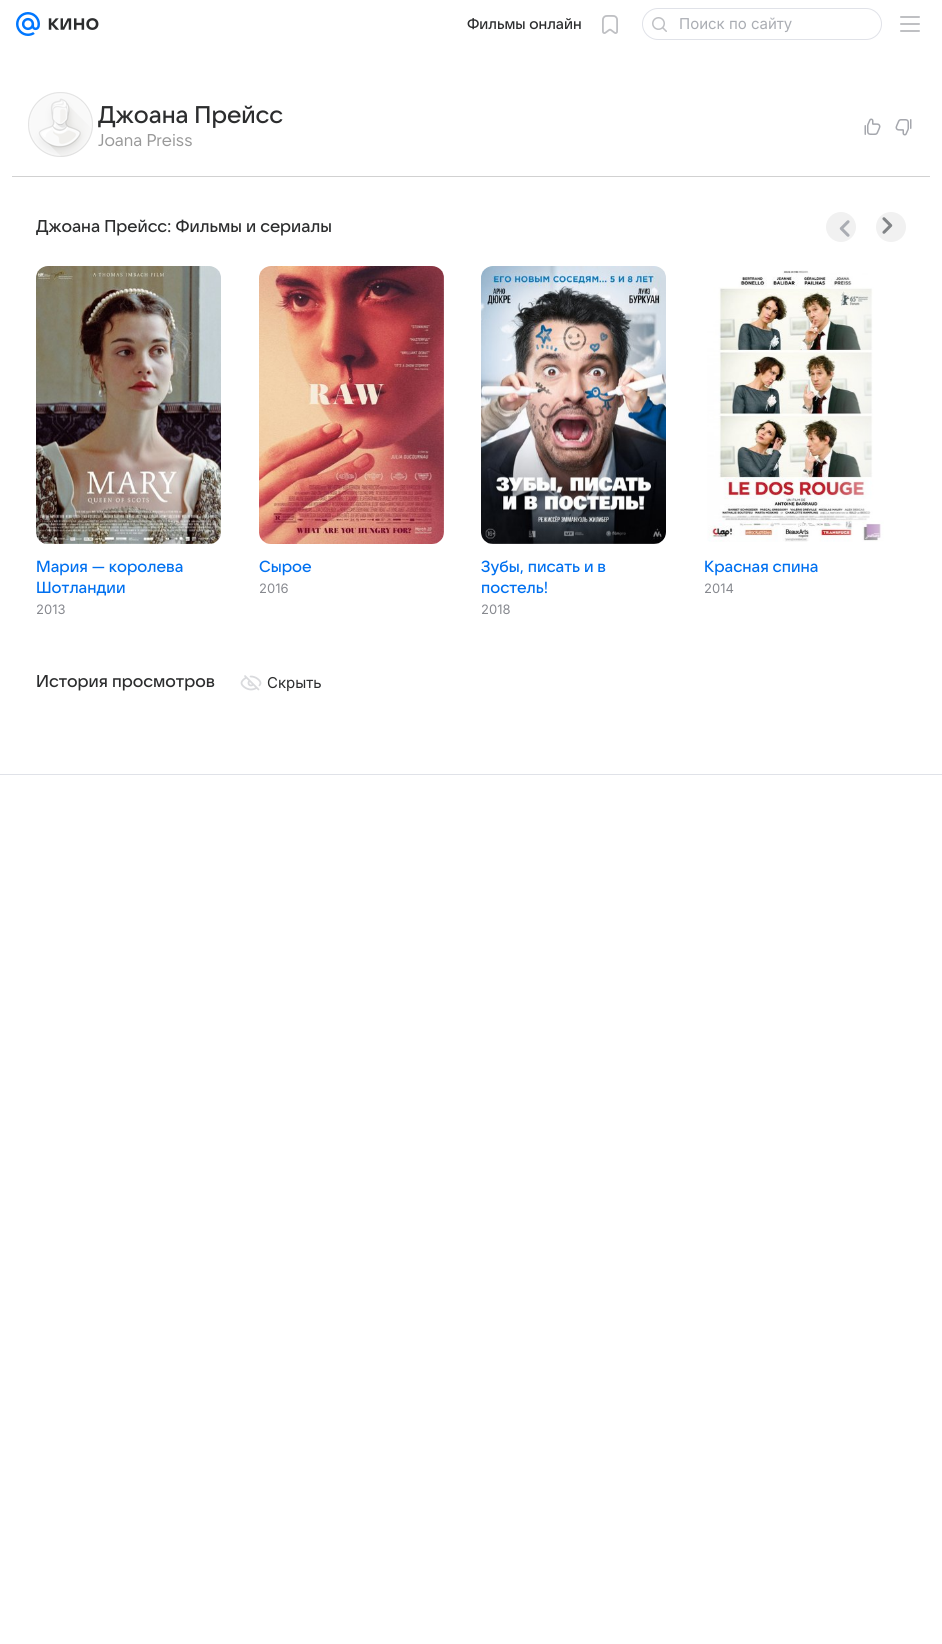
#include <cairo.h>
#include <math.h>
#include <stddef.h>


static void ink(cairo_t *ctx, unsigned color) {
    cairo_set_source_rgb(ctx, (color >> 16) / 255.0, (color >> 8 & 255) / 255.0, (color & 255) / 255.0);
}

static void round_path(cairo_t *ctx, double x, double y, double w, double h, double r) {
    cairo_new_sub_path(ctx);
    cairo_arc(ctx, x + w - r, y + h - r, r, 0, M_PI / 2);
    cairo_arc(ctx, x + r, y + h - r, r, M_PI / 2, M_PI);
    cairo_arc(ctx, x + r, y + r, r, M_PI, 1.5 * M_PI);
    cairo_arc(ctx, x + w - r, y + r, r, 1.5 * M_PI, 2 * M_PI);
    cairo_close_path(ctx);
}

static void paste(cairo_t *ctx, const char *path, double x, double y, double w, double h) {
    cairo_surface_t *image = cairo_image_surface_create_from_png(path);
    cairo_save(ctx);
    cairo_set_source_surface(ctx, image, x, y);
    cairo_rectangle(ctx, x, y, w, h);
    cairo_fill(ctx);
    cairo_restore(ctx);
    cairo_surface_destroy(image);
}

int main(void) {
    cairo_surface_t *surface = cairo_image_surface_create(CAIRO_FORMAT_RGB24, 942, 1644);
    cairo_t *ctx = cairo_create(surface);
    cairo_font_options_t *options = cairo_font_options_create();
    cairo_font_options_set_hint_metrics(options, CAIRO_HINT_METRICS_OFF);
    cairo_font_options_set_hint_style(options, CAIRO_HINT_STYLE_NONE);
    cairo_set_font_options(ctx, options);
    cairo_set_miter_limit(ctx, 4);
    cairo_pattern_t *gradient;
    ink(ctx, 0xFFFFFF);
    cairo_paint(ctx);
    paste(ctx, "media/1.png", 16, 12, 24, 24);
    paste(ctx, "media/2.png", 48, 18, 51, 12);
    cairo_select_font_face(ctx, "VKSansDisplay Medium", CAIRO_FONT_SLANT_NORMAL, CAIRO_FONT_WEIGHT_NORMAL);
    cairo_set_font_size(ctx, 15);
    ink(ctx, 0x2C2D2E);
    cairo_move_to(ctx, 467, 29);
    cairo_show_text(ctx, "Фильмы онлайн");
    paste(ctx, "media/3.png", 602, 15, 16, 19);
    round_path(ctx, 642.5, 8.5, 239, 31, 15.5);
    ink(ctx, 0xE0E2E8);
    cairo_set_line_width(ctx, 1);
    cairo_stroke(ctx);
    paste(ctx, "media/4.png", 652, 17, 15, 15);
    cairo_select_font_face(ctx, "Inter", CAIRO_FONT_SLANT_NORMAL, CAIRO_FONT_WEIGHT_NORMAL);
    ink(ctx, 0xAAADB3);
    cairo_move_to(ctx, 679, 29);
    cairo_show_text(ctx, "Поиск по сайту");
    paste(ctx, "media/5.png", 900, 16, 20, 16);
    ink(ctx, 0xD1D1D1);
    cairo_rectangle(ctx, 12, 176, 918, 1);
    cairo_fill(ctx);
    paste(ctx, "media/6.png", 28, 92, 65, 65);
    cairo_select_font_face(ctx, "VKSansDisplay Medium", CAIRO_FONT_SLANT_NORMAL, CAIRO_FONT_WEIGHT_NORMAL);
    cairo_set_font_size(ctx, 24);
    ink(ctx, 0x2C2D2E);
    cairo_move_to(ctx, 98, 123);
    cairo_show_text(ctx, "Джоана Прейсс");
    cairo_select_font_face(ctx, "VKSansDisplay", CAIRO_FONT_SLANT_NORMAL, CAIRO_FONT_WEIGHT_NORMAL);
    cairo_set_font_size(ctx, 17);
    ink(ctx, 0x999999);
    cairo_move_to(ctx, 98, 146);
    cairo_show_text(ctx, "Joana Preiss");
    paste(ctx, "media/7.png", 864, 118, 17, 17);
    paste(ctx, "media/8.png", 895, 119, 17, 17);
    cairo_select_font_face(ctx, "VKSansDisplay Medium", CAIRO_FONT_SLANT_NORMAL, CAIRO_FONT_WEIGHT_NORMAL);
    ink(ctx, 0x2C2D2E);
    cairo_move_to(ctx, 36, 232);
    cairo_show_text(ctx, "Джоана Прейсс: Фильмы и сериалы");
    ink(ctx, 0xF1F1F1);
    cairo_new_path(ctx);
    cairo_arc(ctx, 841, 227, 15, 0, 2 * M_PI);
    cairo_fill(ctx);
    paste(ctx, "media/9.png", 839, 220, 11, 17);
    cairo_new_path(ctx);
    cairo_move_to(ctx, 891, 242);
    cairo_curve_to(ctx, 882.5, 242, 876, 235.5, 876, 227);
    cairo_curve_to(ctx, 876, 218.5, 882.5, 212, 891, 212);
    cairo_curve_to(ctx, 899.5, 212, 906, 218.5, 906, 227);
    cairo_curve_to(ctx, 906, 235.5, 899.5, 242, 891, 242);
    cairo_close_path(ctx);
    cairo_fill(ctx);
    paste(ctx, "media/10.png", 882, 217, 11, 17);
    paste(ctx, "media/14.png", 707, 270, 177, 272);
    gradient = cairo_pattern_create_linear(826, 442, 906, 442);
    cairo_pattern_add_color_stop_rgba(gradient, 0, 1, 1, 1, 0);
    cairo_pattern_add_color_stop_rgba(gradient, 1, 1, 1, 1, 1);
    cairo_set_source(ctx, gradient);
    cairo_pattern_destroy(gradient);
    cairo_rectangle(ctx, 828, 277, 56, 265);
    cairo_fill(ctx);
    paste(ctx, "media/11.png", 36, 266, 185, 278);
    cairo_set_font_size(ctx, 16);
    ink(ctx, 0x0070F0);
    cairo_move_to(ctx, 36, 572);
    cairo_show_text(ctx, "Мария — королева");
    cairo_move_to(ctx, 36, 593);
    cairo_show_text(ctx, "Шотландии");
    cairo_select_font_face(ctx, "Inter", CAIRO_FONT_SLANT_NORMAL, CAIRO_FONT_WEIGHT_NORMAL);
    cairo_set_font_size(ctx, 13);
    ink(ctx, 0x87898F);
    cairo_move_to(ctx, 36, 614);
    cairo_show_text(ctx, "2013");
    paste(ctx, "media/12.png", 259, 266, 185, 278);
    cairo_select_font_face(ctx, "VKSansDisplay Medium", CAIRO_FONT_SLANT_NORMAL, CAIRO_FONT_WEIGHT_NORMAL);
    cairo_set_font_size(ctx, 16);
    ink(ctx, 0x0070F0);
    cairo_move_to(ctx, 259, 572);
    cairo_show_text(ctx, "Сырое");
    cairo_select_font_face(ctx, "Inter", CAIRO_FONT_SLANT_NORMAL, CAIRO_FONT_WEIGHT_NORMAL);
    cairo_set_font_size(ctx, 13);
    ink(ctx, 0x87898F);
    cairo_move_to(ctx, 259, 593);
    cairo_show_text(ctx, "2016");
    paste(ctx, "media/13.png", 481, 266, 185, 278);
    cairo_select_font_face(ctx, "VKSansDisplay Medium", CAIRO_FONT_SLANT_NORMAL, CAIRO_FONT_WEIGHT_NORMAL);
    cairo_set_font_size(ctx, 16);
    ink(ctx, 0x0070F0);
    cairo_move_to(ctx, 481, 572);
    cairo_show_text(ctx, "Зубы, писать и в");
    cairo_move_to(ctx, 481, 593);
    cairo_show_text(ctx, "постель!");
    cairo_select_font_face(ctx, "Inter", CAIRO_FONT_SLANT_NORMAL, CAIRO_FONT_WEIGHT_NORMAL);
    cairo_set_font_size(ctx, 13);
    ink(ctx, 0x87898F);
    cairo_move_to(ctx, 481, 614);
    cairo_show_text(ctx, "2018");
    cairo_select_font_face(ctx, "VKSansDisplay Medium", CAIRO_FONT_SLANT_NORMAL, CAIRO_FONT_WEIGHT_NORMAL);
    cairo_set_font_size(ctx, 16);
    ink(ctx, 0x0070F0);
    cairo_move_to(ctx, 704, 572);
    cairo_show_text(ctx, "Красная спина");
    cairo_select_font_face(ctx, "Inter", CAIRO_FONT_SLANT_NORMAL, CAIRO_FONT_WEIGHT_NORMAL);
    cairo_set_font_size(ctx, 13);
    ink(ctx, 0x87898F);
    cairo_move_to(ctx, 704, 593);
    cairo_show_text(ctx, "2014");
    cairo_select_font_face(ctx, "VKSansDisplay Medium", CAIRO_FONT_SLANT_NORMAL, CAIRO_FONT_WEIGHT_NORMAL);
    cairo_set_font_size(ctx, 17);
    ink(ctx, 0x2C2D2E);
    cairo_move_to(ctx, 36, 687);
    cairo_show_text(ctx, "История просмотров");
    paste(ctx, "media/15.png", 240, 675, 22, 16);
    cairo_select_font_face(ctx, "Inter", CAIRO_FONT_SLANT_NORMAL, CAIRO_FONT_WEIGHT_NORMAL);
    cairo_set_font_size(ctx, 15);
    cairo_move_to(ctx, 267, 688);
    cairo_show_text(ctx, "Скрыть");
    ink(ctx, 0xE0E2E8);
    cairo_rectangle(ctx, 0, 774, 942, 1);
    cairo_fill(ctx);
    cairo_surface_write_to_png(surface, "image.png");
    cairo_font_options_destroy(options);
    cairo_destroy(ctx);
    cairo_surface_destroy(surface);
    return 0;
}
